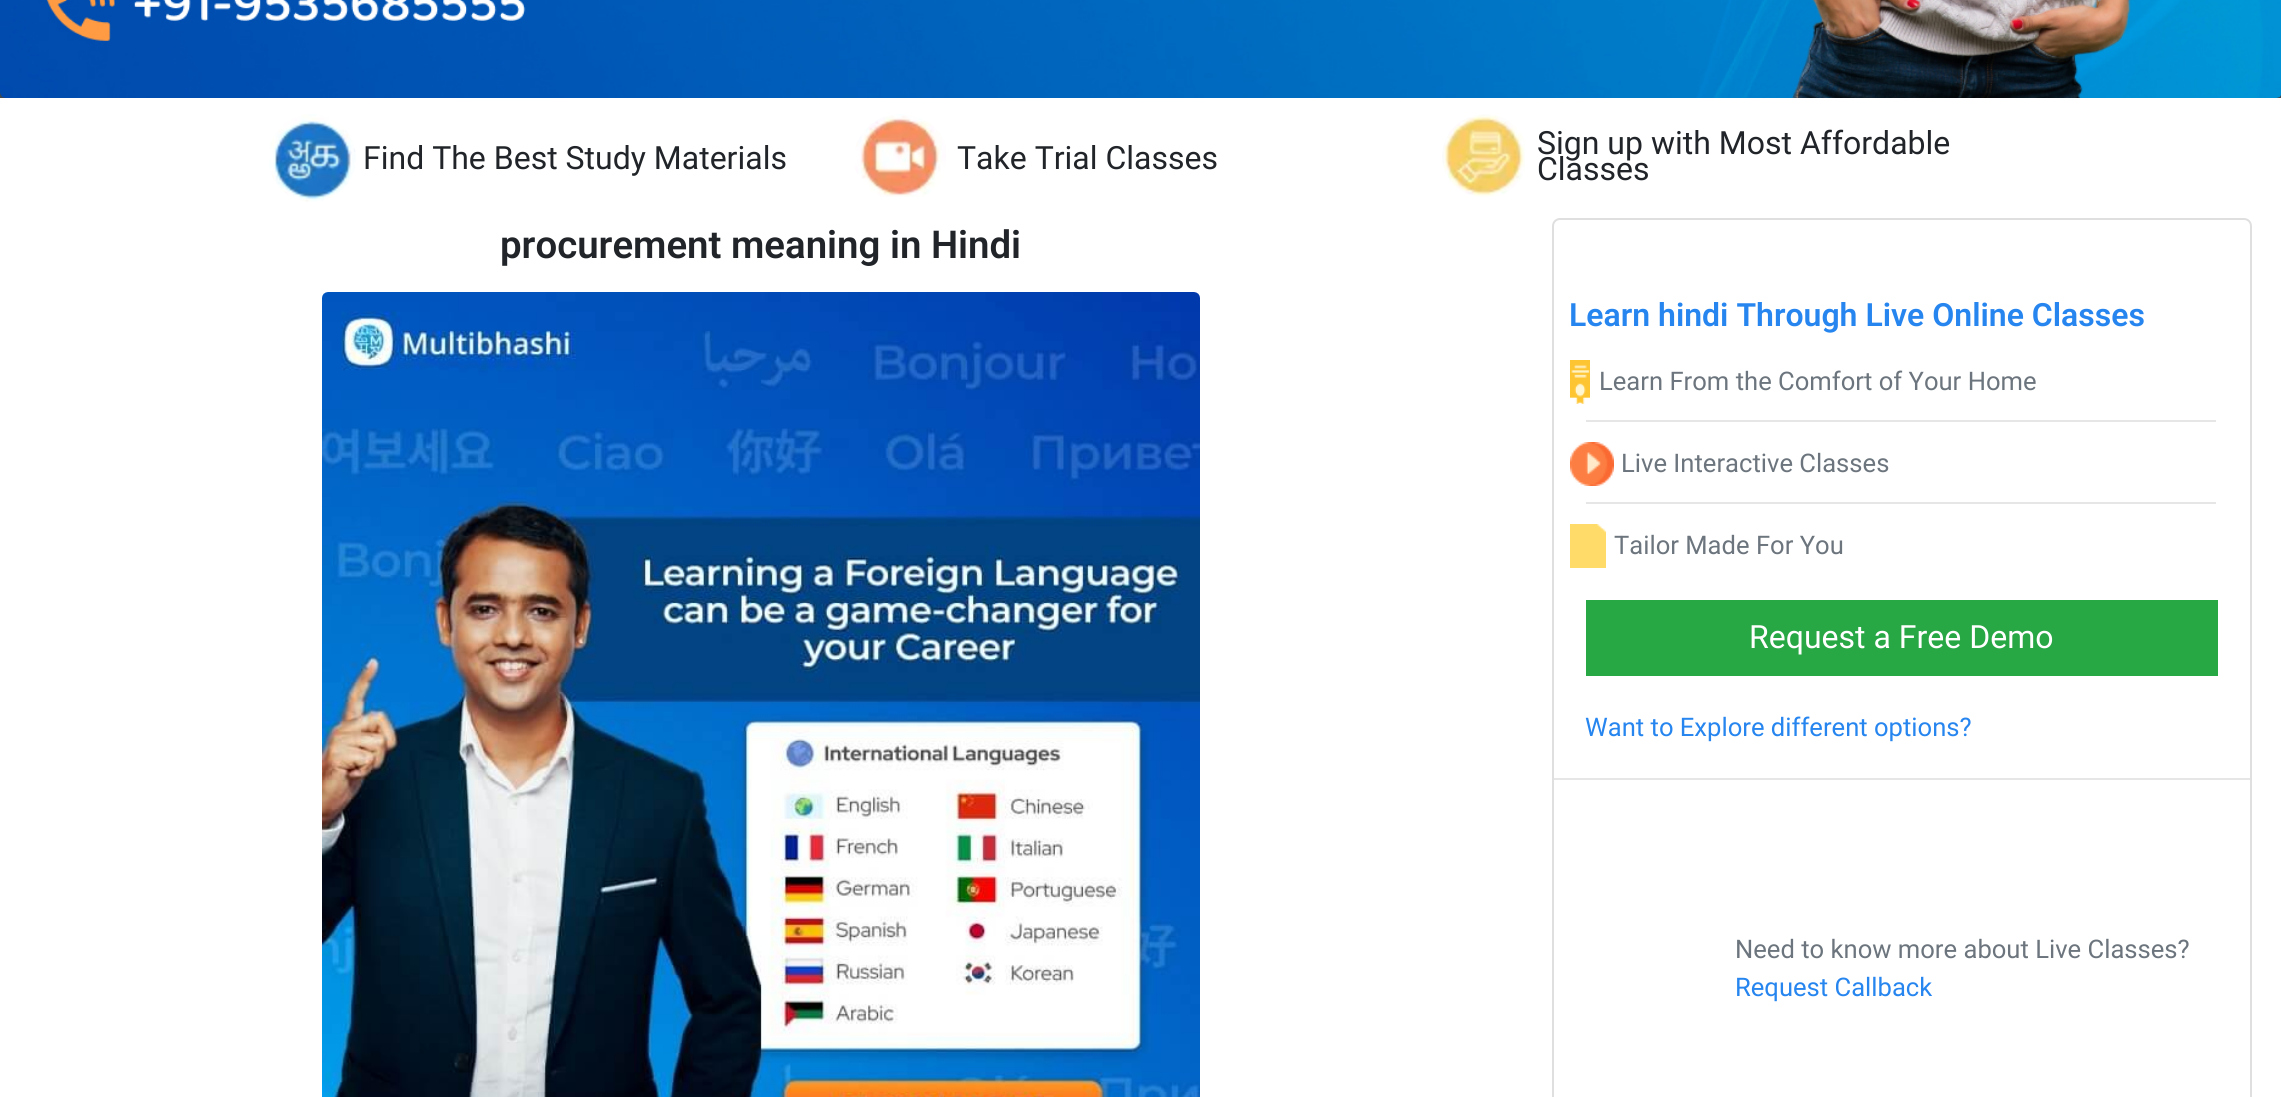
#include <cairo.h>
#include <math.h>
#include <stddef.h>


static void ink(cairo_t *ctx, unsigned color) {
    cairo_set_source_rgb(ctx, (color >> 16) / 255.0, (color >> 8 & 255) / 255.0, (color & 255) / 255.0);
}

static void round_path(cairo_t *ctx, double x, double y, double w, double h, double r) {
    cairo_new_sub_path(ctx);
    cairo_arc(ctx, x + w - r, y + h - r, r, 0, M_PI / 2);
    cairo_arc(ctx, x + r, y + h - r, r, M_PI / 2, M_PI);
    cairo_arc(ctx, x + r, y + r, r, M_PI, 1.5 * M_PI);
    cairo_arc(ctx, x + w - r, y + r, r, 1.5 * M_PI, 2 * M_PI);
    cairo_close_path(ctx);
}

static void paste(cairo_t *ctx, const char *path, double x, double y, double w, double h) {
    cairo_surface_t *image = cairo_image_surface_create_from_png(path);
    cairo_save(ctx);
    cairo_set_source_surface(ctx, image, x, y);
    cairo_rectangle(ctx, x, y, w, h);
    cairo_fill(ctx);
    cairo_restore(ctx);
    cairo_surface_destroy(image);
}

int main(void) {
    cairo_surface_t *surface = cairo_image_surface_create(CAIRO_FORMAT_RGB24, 2281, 1097);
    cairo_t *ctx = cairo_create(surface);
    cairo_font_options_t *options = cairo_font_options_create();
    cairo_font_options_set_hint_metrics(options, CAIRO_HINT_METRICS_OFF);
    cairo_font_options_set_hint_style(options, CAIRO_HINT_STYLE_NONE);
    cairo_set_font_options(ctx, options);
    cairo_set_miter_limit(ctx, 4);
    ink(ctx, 0xFFFFFF);
    cairo_paint(ctx);
    ink(ctx, 0x3C4852);
    cairo_rectangle(ctx, 0, 92, 2281, 6);
    cairo_fill(ctx);
    paste(ctx, "media/1.png", 0, 0, 2281, 98);
    paste(ctx, "media/2.png", 269, 114, 87, 88);
    cairo_select_font_face(ctx, "Roboto", CAIRO_FONT_SLANT_NORMAL, CAIRO_FONT_WEIGHT_NORMAL);
    cairo_set_font_size(ctx, 32);
    ink(ctx, 0x212529);
    cairo_move_to(ctx, 363, 169);
    cairo_show_text(ctx, "Find The Best Study Materials");
    paste(ctx, "media/3.png", 855, 114, 91, 83);
    cairo_move_to(ctx, 957, 169);
    cairo_show_text(ctx, "Take Trial Classes");
    paste(ctx, "media/4.png", 1442, 114, 83, 83);
    cairo_move_to(ctx, 1537, 154);
    cairo_show_text(ctx, "Sign up with Most Affordable");
    cairo_move_to(ctx, 1537, 180);
    cairo_show_text(ctx, "Classes");
    cairo_select_font_face(ctx, "Roboto SemiBold", CAIRO_FONT_SLANT_NORMAL, CAIRO_FONT_WEIGHT_NORMAL);
    cairo_set_font_size(ctx, 38.4);
    cairo_move_to(ctx, 500, 258);
    cairo_show_text(ctx, "procurement meaning in Hindi");
    paste(ctx, "media/5.png", 322, 292, 878, 805);
    round_path(ctx, 1553, 219, 698, 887, 7);
    ink(ctx, 0xDFDFDF);
    cairo_stroke(ctx);
    cairo_set_font_size(ctx, 32);
    ink(ctx, 0x2685EF);
    cairo_move_to(ctx, 1569, 326);
    cairo_show_text(ctx, "Learn hindi Through Live Online Classes");
    paste(ctx, "media/6.png", 1570, 360, 20, 44);
    cairo_select_font_face(ctx, "Roboto", CAIRO_FONT_SLANT_NORMAL, CAIRO_FONT_WEIGHT_NORMAL);
    cairo_set_font_size(ctx, 25.6);
    ink(ctx, 0x6C757D);
    cairo_move_to(ctx, 1599, 390);
    cairo_show_text(ctx, "Learn From the Comfort of Your Home");
    ink(ctx, 0xE6E6E6);
    cairo_rectangle(ctx, 1586, 420, 630, 2);
    cairo_fill(ctx);
    paste(ctx, "media/7.png", 1570, 442, 44, 44);
    ink(ctx, 0x6C757D);
    cairo_move_to(ctx, 1621, 472);
    cairo_show_text(ctx, "Live Interactive Classes");
    ink(ctx, 0xE6E6E6);
    cairo_rectangle(ctx, 1586, 502, 630, 2);
    cairo_fill(ctx);
    paste(ctx, "media/8.png", 1570, 524, 36, 44);
    ink(ctx, 0x6C757D);
    cairo_move_to(ctx, 1614, 554);
    cairo_show_text(ctx, "Tailor Made For You");
    ink(ctx, 0x28A745);
    cairo_rectangle(ctx, 1586, 600, 632, 76);
    cairo_fill(ctx);
    cairo_set_font_size(ctx, 32);
    ink(ctx, 0xFFFFFF);
    cairo_move_to(ctx, 1749, 648);
    cairo_show_text(ctx, "Request a Free Demo");
    cairo_set_font_size(ctx, 25.6);
    ink(ctx, 0x2685EF);
    cairo_move_to(ctx, 1585, 736);
    cairo_show_text(ctx, "Want to Explore different options?");
    ink(ctx, 0xE6E6E6);
    cairo_rectangle(ctx, 1554, 778, 696, 2);
    cairo_fill(ctx);
    ink(ctx, 0x6C757D);
    cairo_move_to(ctx, 1735, 958);
    cairo_show_text(ctx, "Need to know more about Live Classes?");
    ink(ctx, 0x2685EF);
    cairo_move_to(ctx, 1735, 996);
    cairo_show_text(ctx, "Request Callback");
    cairo_surface_write_to_png(surface, "image.png");
    cairo_font_options_destroy(options);
    cairo_destroy(ctx);
    cairo_surface_destroy(surface);
    return 0;
}
